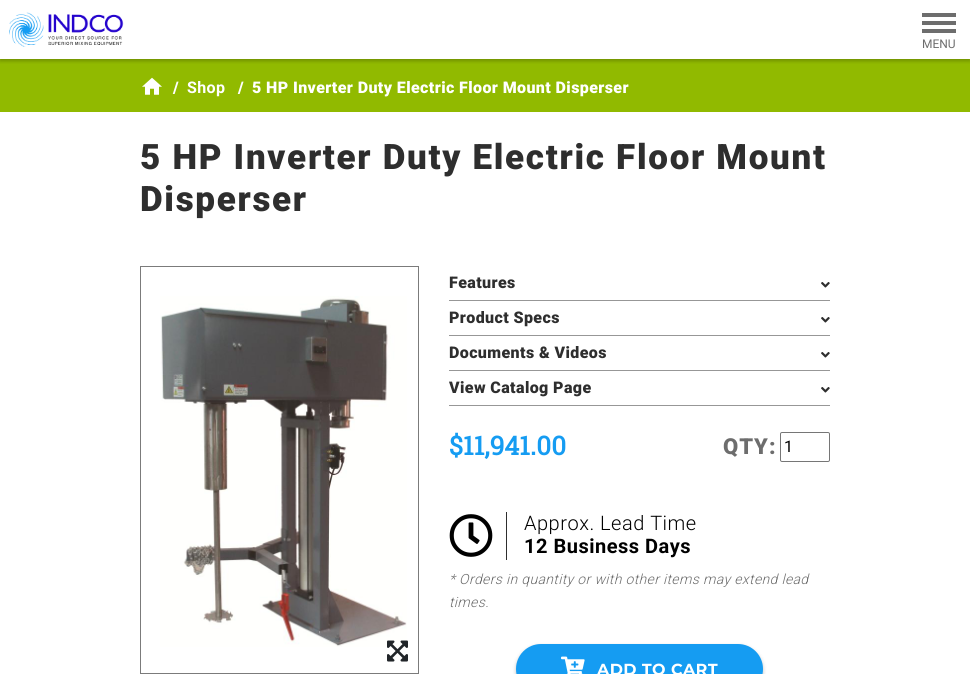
#include <cairo.h>
#include <math.h>
#include <stddef.h>

typedef struct { double x, y, w, h; unsigned color; } box_t;

static void ink(cairo_t *ctx, unsigned color) {
    cairo_set_source_rgb(ctx, (color >> 16) / 255.0, (color >> 8 & 255) / 255.0, (color & 255) / 255.0);
}

static void write_spaced(cairo_t *ctx, double x, double y, const char *s, double letter, double word) {
    cairo_move_to(ctx, x, y);
    while (*s) {
        char ch[5] = {0};
        int n = 0;
        do ch[n++] = *s++; while ((*s & 0xC0) == 0x80);
        cairo_show_text(ctx, ch);
        cairo_rel_move_to(ctx, letter + word * (*ch == ' '), 0);
    }
}

static void round_path(cairo_t *ctx, double x, double y, double w, double h, double r) {
    cairo_new_sub_path(ctx);
    cairo_arc(ctx, x + w - r, y + h - r, r, 0, M_PI / 2);
    cairo_arc(ctx, x + r, y + h - r, r, M_PI / 2, M_PI);
    cairo_arc(ctx, x + r, y + r, r, M_PI, 1.5 * M_PI);
    cairo_arc(ctx, x + w - r, y + r, r, 1.5 * M_PI, 2 * M_PI);
    cairo_close_path(ctx);
}

static void blur_box(cairo_t *ctx, double x, double y, double w, double h, double r, double blur, double alpha) {
    cairo_push_group_with_content(ctx, CAIRO_CONTENT_ALPHA);
    cairo_set_operator(ctx, CAIRO_OPERATOR_SOURCE);
    for (int i = 15; i >= -15 && fmin(w, h) + blur * i / 3 > 0; i -= 2) {
        double e = blur * i / 6;
        cairo_set_source_rgba(ctx, 0, 0, 0, alpha * erfc((i - 1) / 8.5) / 2);
        round_path(ctx, x - e, y - e, w + 2 * e, h + 2 * e, fmax(0, fmin(r + e + blur * .6, fmin(w, h) / 2 + e)));
        cairo_fill(ctx);
    }
    cairo_pattern_t *soft = cairo_pop_group(ctx);
    cairo_mask(ctx, soft);
    cairo_pattern_destroy(soft);
}

static void paste(cairo_t *ctx, const char *path, double x, double y, double w, double h) {
    cairo_surface_t *image = cairo_image_surface_create_from_png(path);
    cairo_save(ctx);
    cairo_set_source_surface(ctx, image, x, y);
    cairo_rectangle(ctx, x, y, w, h);
    cairo_fill(ctx);
    cairo_restore(ctx);
    cairo_surface_destroy(image);
}

int main(void) {
    cairo_surface_t *surface = cairo_image_surface_create(CAIRO_FORMAT_RGB24, 970, 674);
    cairo_t *ctx = cairo_create(surface);
    cairo_font_options_t *options = cairo_font_options_create();
    cairo_font_options_set_hint_metrics(options, CAIRO_HINT_METRICS_OFF);
    cairo_font_options_set_hint_style(options, CAIRO_HINT_STYLE_NONE);
    cairo_set_font_options(ctx, options);
    cairo_set_miter_limit(ctx, 4);
    ink(ctx, 0xFFFFFF);
    cairo_paint(ctx);
    ink(ctx, 0x91BA00);
    cairo_rectangle(ctx, 0, 59, 970, 53);
    cairo_fill(ctx);
    cairo_save(ctx);
    cairo_rectangle(ctx, 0, 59, 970, 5);
    cairo_clip(ctx);
    ink(ctx, 0x000000);
    blur_box(ctx, 0, 2, 970, 59, 0, 2, 0.24);
    cairo_restore(ctx);
    paste(ctx, "media/1.png", 9, 12, 115, 35);
    {
        static const box_t items[] = {
            {922, 13, 34, 4, 0x6D6D6D},
            {922, 21, 34, 4, 0x6D6D6D},
            {922, 29, 34, 4, 0x6D6D6D},
        };
        for (size_t i = 0; i < sizeof items / sizeof *items; i++) {
            ink(ctx, items[i].color);
            cairo_rectangle(ctx, items[i].x, items[i].y, items[i].w, items[i].h);
            cairo_fill(ctx);
        }
    }
    cairo_select_font_face(ctx, "Roboto", CAIRO_FONT_SLANT_NORMAL, CAIRO_FONT_WEIGHT_NORMAL);
    cairo_set_font_size(ctx, 12);
    cairo_move_to(ctx, 922, 48);
    cairo_show_text(ctx, "MENU");
    paste(ctx, "media/2.png", 142, 77, 20, 18);
    cairo_select_font_face(ctx, "Roboto Black", CAIRO_FONT_SLANT_NORMAL, CAIRO_FONT_WEIGHT_NORMAL);
    cairo_set_font_size(ctx, 16);
    ink(ctx, 0xFFFFFF);
    write_spaced(ctx, 173, 93, "/", 0.4, 0);
    cairo_select_font_face(ctx, "Roboto", CAIRO_FONT_SLANT_NORMAL, CAIRO_FONT_WEIGHT_BOLD);
    write_spaced(ctx, 187, 93, "Shop", 0.4, 0);
    cairo_select_font_face(ctx, "Roboto Black", CAIRO_FONT_SLANT_NORMAL, CAIRO_FONT_WEIGHT_NORMAL);
    write_spaced(ctx, 238, 93, "/", 0.4, 0);
    write_spaced(ctx, 252, 93, "5 HP Inverter Duty Electric Floor Mount Disperser", 0.4, 0);
    cairo_set_font_size(ctx, 35);
    ink(ctx, 0x2E2E2E);
    write_spaced(ctx, 140, 169, "5 HP Inverter Duty Electric Floor Mount", 1.7, 0);
    write_spaced(ctx, 140, 211, "Disperser", 1.7, 0);
    cairo_rectangle(ctx, 140.5, 266.5, 278, 407);
    ink(ctx, 0x7B7B7B);
    cairo_set_line_width(ctx, 1);
    cairo_stroke(ctx);
    paste(ctx, "media/3.png", 160, 296, 247, 351);
    paste(ctx, "media/4.png", 387, 640, 21, 22);
    ink(ctx, 0x979797);
    cairo_rectangle(ctx, 449, 300, 381, 1);
    cairo_fill(ctx);
    cairo_set_font_size(ctx, 16);
    ink(ctx, 0x2E2E2E);
    write_spaced(ctx, 449, 288, "Features", 0.4, 0);
    paste(ctx, "media/5.png", 821, 282, 9, 6);
    ink(ctx, 0x979797);
    cairo_rectangle(ctx, 449, 335, 381, 1);
    cairo_fill(ctx);
    ink(ctx, 0x2E2E2E);
    write_spaced(ctx, 449, 323, "Product Specs", 0.4, 0);
    paste(ctx, "media/5.png", 821, 317, 9, 6);
    ink(ctx, 0x979797);
    cairo_rectangle(ctx, 449, 370, 381, 1);
    cairo_fill(ctx);
    ink(ctx, 0x2E2E2E);
    write_spaced(ctx, 449, 358, "Documents & Videos", 0.4, 0);
    paste(ctx, "media/5.png", 821, 352, 9, 6);
    ink(ctx, 0x979797);
    cairo_rectangle(ctx, 449, 405, 381, 1);
    cairo_fill(ctx);
    ink(ctx, 0x2E2E2E);
    write_spaced(ctx, 449, 393, "View Catalog Page", 0.4, 0);
    paste(ctx, "media/5.png", 821, 387, 9, 6);
    cairo_select_font_face(ctx, "Roboto Slab", CAIRO_FONT_SLANT_NORMAL, CAIRO_FONT_WEIGHT_BOLD);
    cairo_set_font_size(ctx, 26);
    ink(ctx, 0x159CF2);
    cairo_move_to(ctx, 449, 455);
    cairo_show_text(ctx, "$11,941.00");
    cairo_select_font_face(ctx, "Roboto Black", CAIRO_FONT_SLANT_NORMAL, CAIRO_FONT_WEIGHT_NORMAL);
    cairo_set_font_size(ctx, 22);
    ink(ctx, 0x6D6D6D);
    write_spaced(ctx, 723, 454, "QTY:", 1, 0);
    round_path(ctx, 780.5, 432.5, 49, 29, 1.5);
    ink(ctx, 0x767676);
    cairo_stroke(ctx);
    cairo_select_font_face(ctx, "Roboto", CAIRO_FONT_SLANT_NORMAL, CAIRO_FONT_WEIGHT_NORMAL);
    cairo_set_font_size(ctx, 16);
    ink(ctx, 0x000000);
    cairo_move_to(ctx, 784, 452);
    cairo_show_text(ctx, "1");
    ink(ctx, 0x2E2E2E);
    cairo_rectangle(ctx, 506, 512, 1, 48);
    cairo_fill(ctx);
    paste(ctx, "media/6.png", 449, 514, 44, 43);
    cairo_select_font_face(ctx, "Roboto Light", CAIRO_FONT_SLANT_NORMAL, CAIRO_FONT_WEIGHT_NORMAL);
    cairo_set_font_size(ctx, 20);
    ink(ctx, 0x000000);
    write_spaced(ctx, 524, 530, "Approx. Lead Time", 0.5, 0);
    cairo_select_font_face(ctx, "Roboto", CAIRO_FONT_SLANT_NORMAL, CAIRO_FONT_WEIGHT_BOLD);
    write_spaced(ctx, 524, 553, "12 Business Days", 0.5, 0);
    cairo_select_font_face(ctx, "Roboto Light", CAIRO_FONT_SLANT_ITALIC, CAIRO_FONT_WEIGHT_NORMAL);
    cairo_set_font_size(ctx, 14);
    ink(ctx, 0x6D6D6D);
    write_spaced(ctx, 449, 584, "* Orders in quantity or with other items may extend lead", 0.35, 0);
    write_spaced(ctx, 449, 607, "times.", 0.35, 0);
    ink(ctx, 0x000000);
    blur_box(ctx, 516, 646, 247, 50, 25, 2, 0.24);
    ink(ctx, 0x159CF2);
    round_path(ctx, 516, 644, 247, 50, 25);
    cairo_fill(ctx);
    paste(ctx, "media/7.png", 561, 656, 24, 18);
    cairo_select_font_face(ctx, "Montserrat", CAIRO_FONT_SLANT_NORMAL, CAIRO_FONT_WEIGHT_BOLD);
    cairo_set_font_size(ctx, 16);
    ink(ctx, 0xFFFFFF);
    write_spaced(ctx, 597, 675, "ADD TO CART", 0.4, 0);
    cairo_surface_write_to_png(surface, "image.png");
    cairo_font_options_destroy(options);
    cairo_destroy(ctx);
    cairo_surface_destroy(surface);
    return 0;
}
